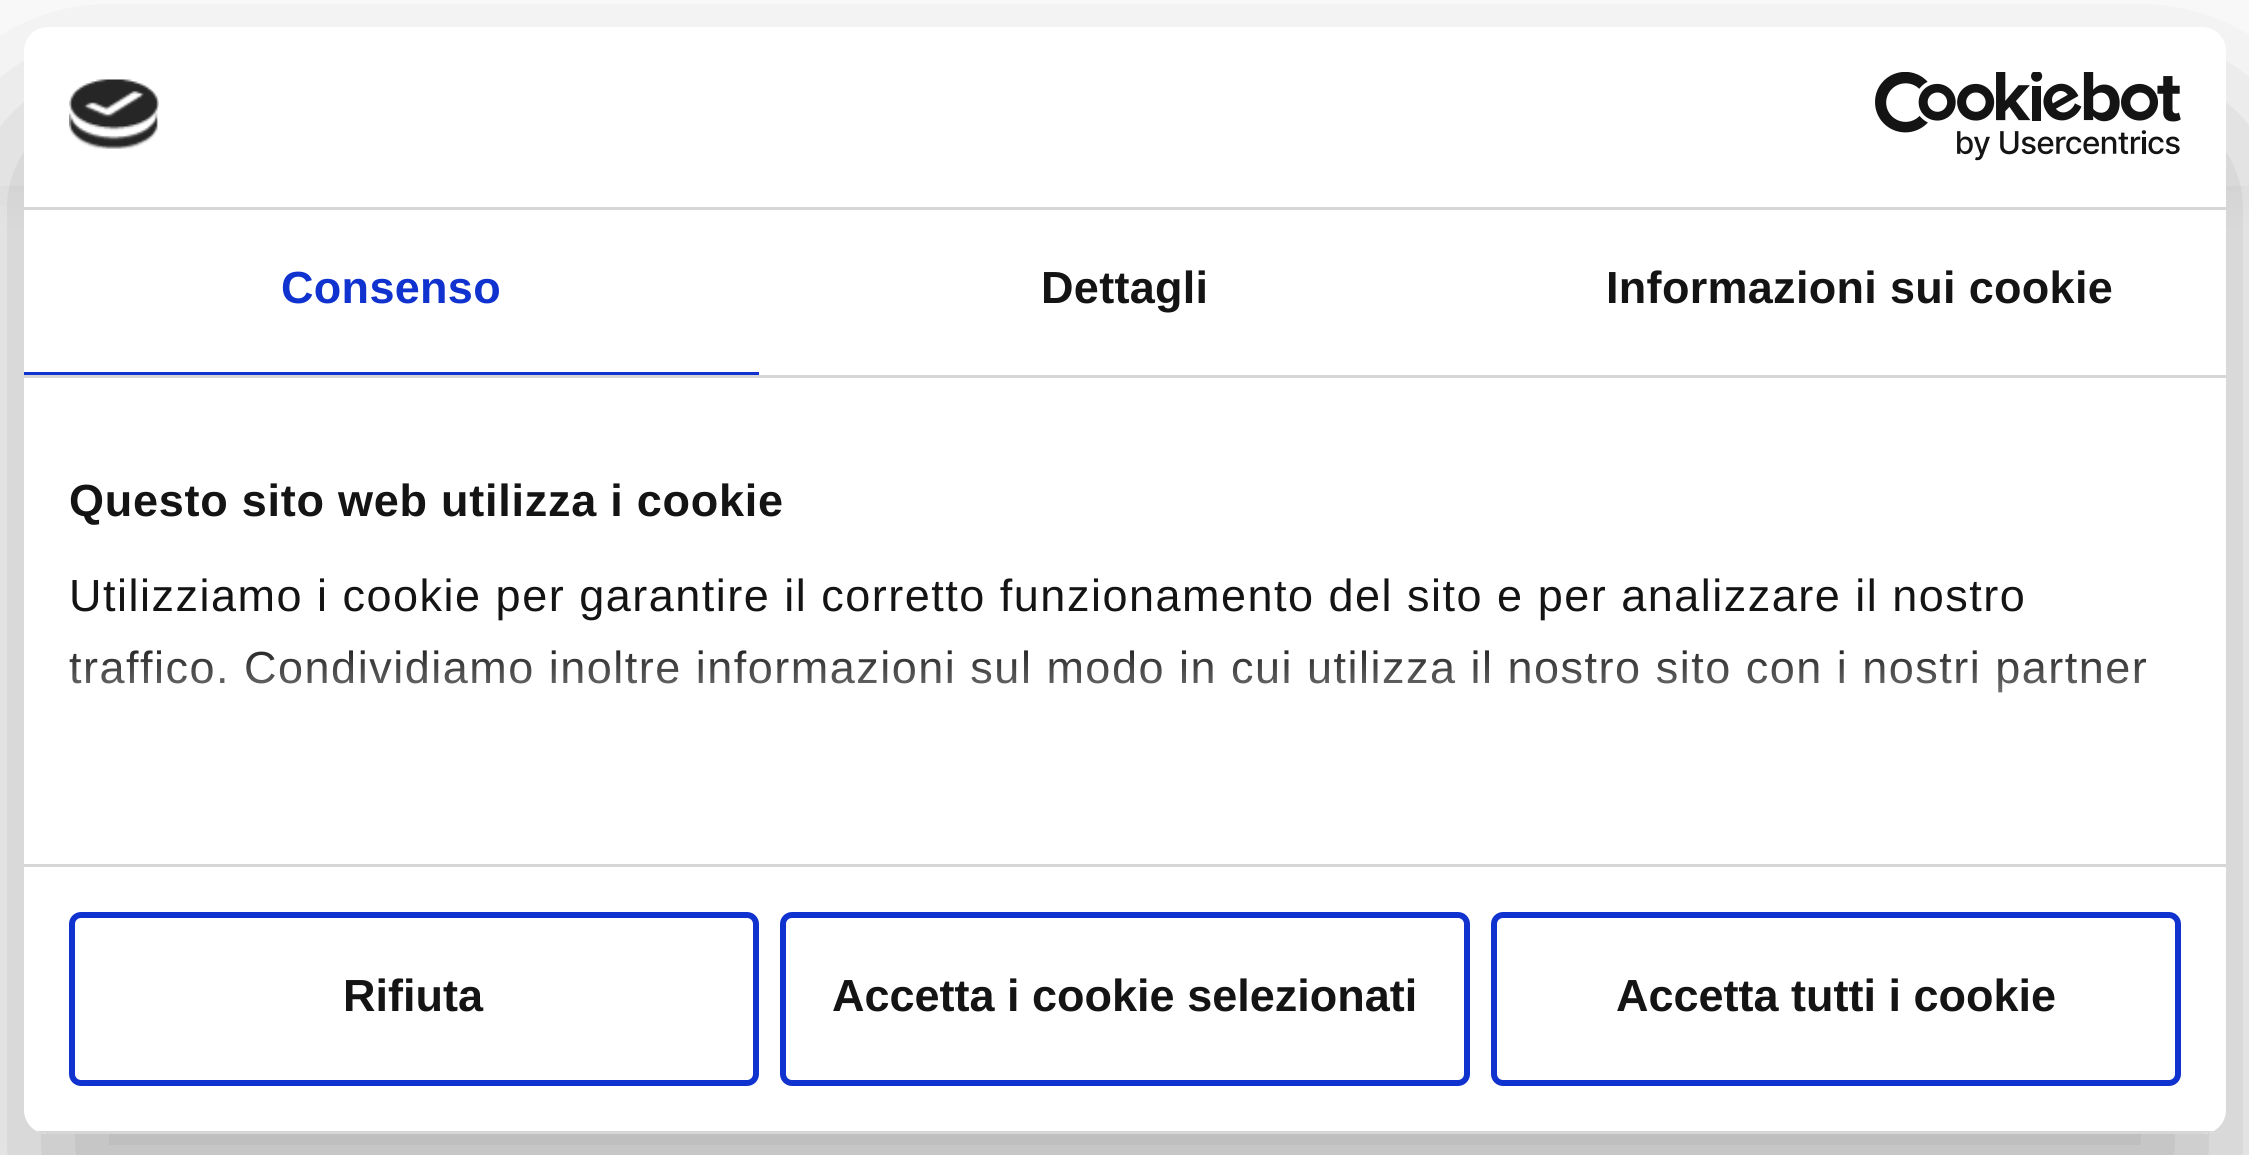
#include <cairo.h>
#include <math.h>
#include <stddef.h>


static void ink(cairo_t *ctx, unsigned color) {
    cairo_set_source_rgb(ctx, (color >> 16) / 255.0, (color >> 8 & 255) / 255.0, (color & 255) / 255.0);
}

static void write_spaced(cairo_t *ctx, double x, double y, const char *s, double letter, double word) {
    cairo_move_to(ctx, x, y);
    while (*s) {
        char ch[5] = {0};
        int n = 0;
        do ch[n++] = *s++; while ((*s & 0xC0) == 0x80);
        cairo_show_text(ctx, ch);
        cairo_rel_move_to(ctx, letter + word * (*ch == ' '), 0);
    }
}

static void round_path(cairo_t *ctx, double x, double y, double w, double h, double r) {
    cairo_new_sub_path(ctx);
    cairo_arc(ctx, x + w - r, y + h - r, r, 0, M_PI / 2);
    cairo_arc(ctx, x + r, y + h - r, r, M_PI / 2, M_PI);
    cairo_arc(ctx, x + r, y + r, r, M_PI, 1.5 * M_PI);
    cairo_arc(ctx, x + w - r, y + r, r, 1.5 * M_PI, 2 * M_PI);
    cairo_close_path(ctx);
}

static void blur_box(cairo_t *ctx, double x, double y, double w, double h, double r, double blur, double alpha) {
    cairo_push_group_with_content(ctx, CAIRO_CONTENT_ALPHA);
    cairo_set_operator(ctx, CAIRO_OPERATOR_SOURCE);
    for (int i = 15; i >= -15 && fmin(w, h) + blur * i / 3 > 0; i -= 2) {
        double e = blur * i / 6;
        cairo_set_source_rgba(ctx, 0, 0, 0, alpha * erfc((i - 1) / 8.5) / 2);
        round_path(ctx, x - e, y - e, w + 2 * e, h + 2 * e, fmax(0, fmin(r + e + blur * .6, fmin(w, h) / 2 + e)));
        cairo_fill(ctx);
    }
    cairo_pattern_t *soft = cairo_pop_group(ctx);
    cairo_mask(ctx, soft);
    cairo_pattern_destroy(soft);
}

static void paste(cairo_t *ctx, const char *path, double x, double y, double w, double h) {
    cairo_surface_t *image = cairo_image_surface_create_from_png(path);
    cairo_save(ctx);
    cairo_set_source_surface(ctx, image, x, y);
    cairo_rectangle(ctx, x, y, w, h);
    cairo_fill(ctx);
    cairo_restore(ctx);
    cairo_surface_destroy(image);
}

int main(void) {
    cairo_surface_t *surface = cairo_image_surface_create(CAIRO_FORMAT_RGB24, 2249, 1155);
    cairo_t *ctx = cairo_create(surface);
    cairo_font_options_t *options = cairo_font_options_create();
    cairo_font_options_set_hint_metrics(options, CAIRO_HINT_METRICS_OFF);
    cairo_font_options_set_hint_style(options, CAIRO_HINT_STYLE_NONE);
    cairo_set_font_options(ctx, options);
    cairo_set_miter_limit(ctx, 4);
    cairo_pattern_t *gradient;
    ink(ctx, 0xFFFFFF);
    cairo_paint(ctx);
    ink(ctx, 0x37423B);
    blur_box(ctx, 0, 0, 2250, 186, 0, 27, 0.08);
    ink(ctx, 0xFFFFFF);
    cairo_rectangle(ctx, 0, 0, 2249, 186);
    cairo_fill(ctx);
    ink(ctx, 0x000000);
    blur_box(ctx, 24, 123, 2202, 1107, 24, 102, 0.3);
    ink(ctx, 0xFFFFFF);
    round_path(ctx, 24, 27, 2202, 1107, 24);
    cairo_fill(ctx);
    ink(ctx, 0xD6D6D6);
    cairo_rectangle(ctx, 24, 207, 2202, 3);
    cairo_fill(ctx);
    paste(ctx, "media/1.png", 69, 79, 90, 70);
    paste(ctx, "media/2.png", 1875, 72, 306, 89);
    cairo_rectangle(ctx, 24, 375, 2202, 3);
    cairo_fill(ctx);
    ink(ctx, 0x1032CF);
    cairo_rectangle(ctx, 24, 372, 735, 3);
    cairo_fill(ctx);
    cairo_select_font_face(ctx, "Liberation Sans", CAIRO_FONT_SLANT_NORMAL, CAIRO_FONT_WEIGHT_BOLD);
    cairo_set_font_size(ctx, 45);
    write_spaced(ctx, 281, 303, "Consenso", 0.3, 0);
    ink(ctx, 0x141414);
    write_spaced(ctx, 1041, 303, "Dettagli", 0.3, 0);
    write_spaced(ctx, 1606, 303, "Informazioni sui cookie", 0.3, 0);
    ink(ctx, 0xD6D6D6);
    cairo_rectangle(ctx, 24, 864, 2202, 3);
    cairo_fill(ctx);
    ink(ctx, 0x141414);
    write_spaced(ctx, 69, 516, "Questo sito web utilizza i cookie", 0.75, 0);
    cairo_select_font_face(ctx, "Liberation Sans", CAIRO_FONT_SLANT_NORMAL, CAIRO_FONT_WEIGHT_NORMAL);
    write_spaced(ctx, 69, 611, "Utilizziamo i cookie per garantire il corretto funzionamento del sito e per analizzare il nostro", 1.5, 0);
    write_spaced(ctx, 69, 683, "traffico. Condividiamo inoltre informazioni sul modo in cui utilizza il nostro sito con i nostri partner", 1.5, 0);
    gradient = cairo_pattern_create_linear(1106, 863, 1106, 638);
    cairo_pattern_add_color_stop_rgba(gradient, 0, 1, 1, 1, 1);
    cairo_pattern_add_color_stop_rgba(gradient, 0.5, 1, 1, 1, 0.8);
    cairo_pattern_add_color_stop_rgba(gradient, 1, 1, 1, 1, 0);
    cairo_set_source(ctx, gradient);
    cairo_pattern_destroy(gradient);
    cairo_rectangle(ctx, 69, 650, 2078, 43);
    cairo_fill(ctx);
    cairo_save(ctx);
    round_path(ctx, 24, 27, 2202, 1107, 24);
    cairo_clip(ctx);
    ink(ctx, 0xD6D6D6);
    cairo_rectangle(ctx, 36, 1131, 2178, 3);
    cairo_fill(ctx);
    cairo_restore(ctx);
    round_path(ctx, 72, 915, 684, 168, 9);
    ink(ctx, 0x1032CF);
    cairo_set_line_width(ctx, 6);
    cairo_stroke(ctx);
    cairo_select_font_face(ctx, "Liberation Sans", CAIRO_FONT_SLANT_NORMAL, CAIRO_FONT_WEIGHT_BOLD);
    ink(ctx, 0x141414);
    cairo_move_to(ctx, 343, 1011);
    cairo_show_text(ctx, "Rifiuta");
    round_path(ctx, 783, 915, 684, 168, 9);
    ink(ctx, 0x1032CF);
    cairo_stroke(ctx);
    ink(ctx, 0x141414);
    cairo_move_to(ctx, 832, 1011);
    cairo_show_text(ctx, "Accetta i cookie selezionati");
    round_path(ctx, 1494, 915, 684, 168, 9);
    ink(ctx, 0x1032CF);
    cairo_stroke(ctx);
    ink(ctx, 0x141414);
    cairo_move_to(ctx, 1616, 1011);
    cairo_show_text(ctx, "Accetta tutti i cookie");
    cairo_surface_write_to_png(surface, "image.png");
    cairo_font_options_destroy(options);
    cairo_destroy(ctx);
    cairo_surface_destroy(surface);
    return 0;
}
